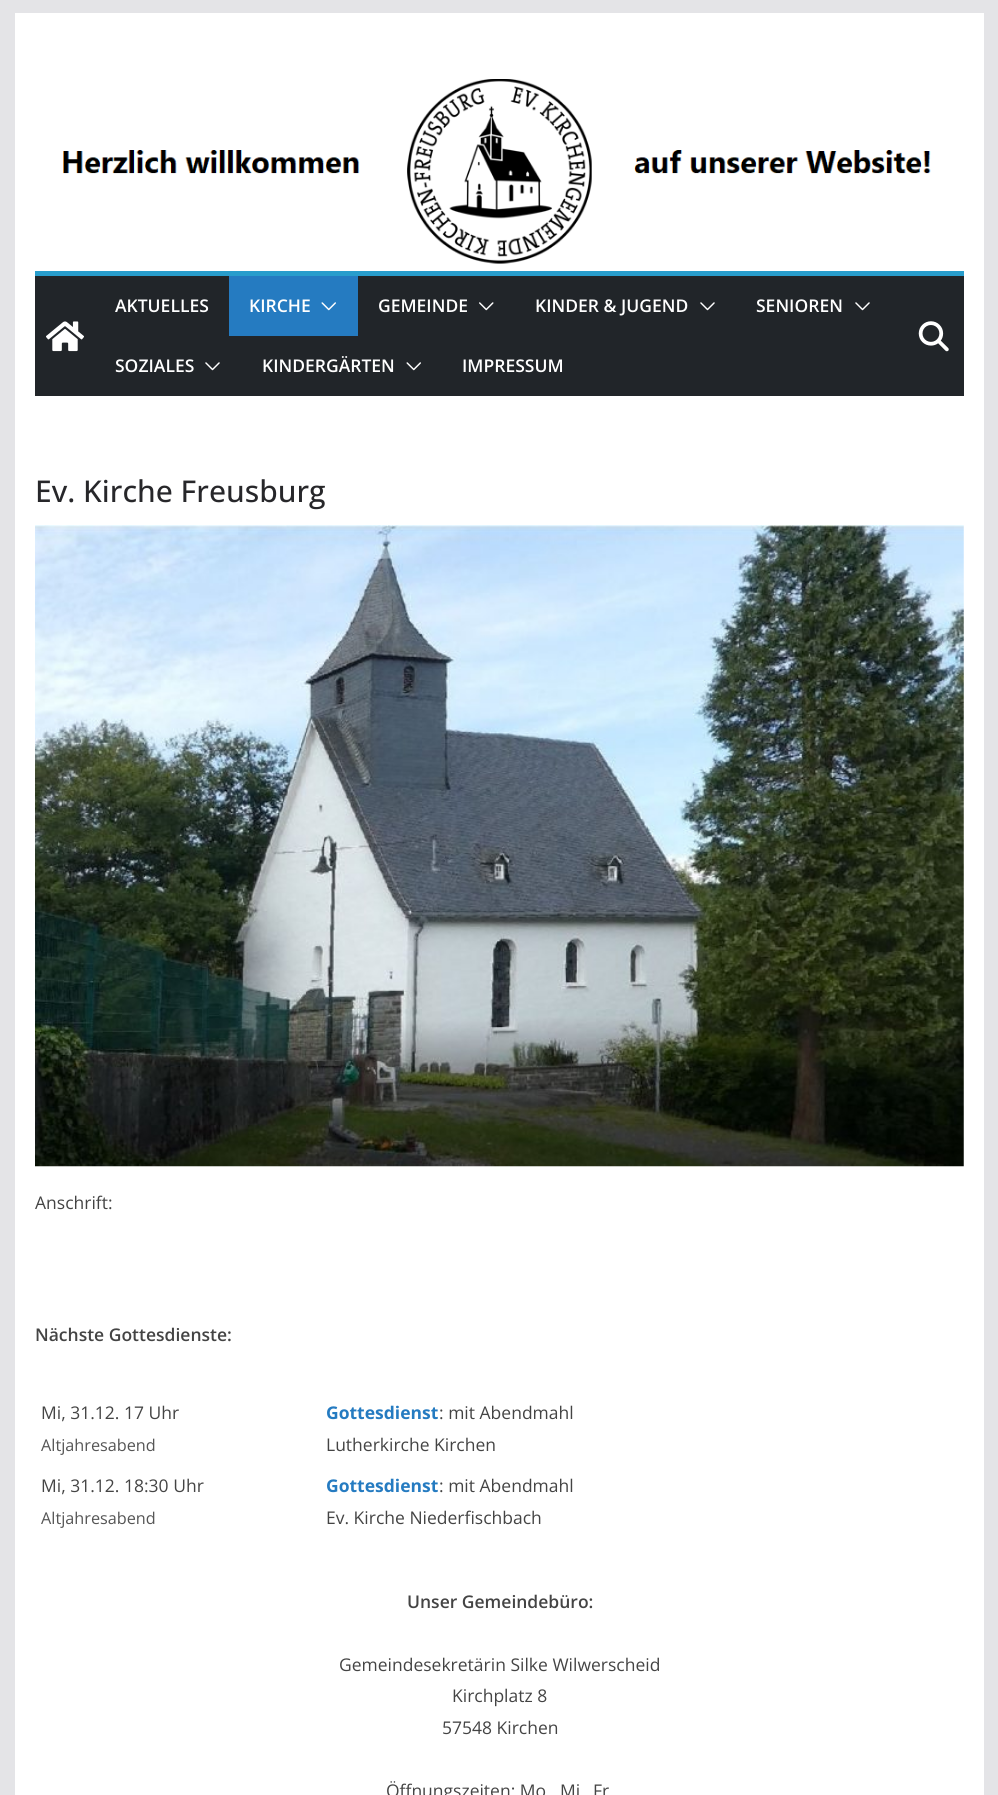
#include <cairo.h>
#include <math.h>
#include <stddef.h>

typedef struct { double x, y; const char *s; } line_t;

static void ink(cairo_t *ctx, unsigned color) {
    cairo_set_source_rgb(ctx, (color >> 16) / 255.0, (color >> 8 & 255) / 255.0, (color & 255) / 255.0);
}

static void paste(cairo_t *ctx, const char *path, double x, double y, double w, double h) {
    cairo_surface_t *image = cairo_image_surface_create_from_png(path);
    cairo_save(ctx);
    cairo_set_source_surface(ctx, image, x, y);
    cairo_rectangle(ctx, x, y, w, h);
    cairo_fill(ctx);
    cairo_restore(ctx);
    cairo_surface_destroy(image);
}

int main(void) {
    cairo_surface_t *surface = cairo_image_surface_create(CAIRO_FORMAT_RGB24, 998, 1795);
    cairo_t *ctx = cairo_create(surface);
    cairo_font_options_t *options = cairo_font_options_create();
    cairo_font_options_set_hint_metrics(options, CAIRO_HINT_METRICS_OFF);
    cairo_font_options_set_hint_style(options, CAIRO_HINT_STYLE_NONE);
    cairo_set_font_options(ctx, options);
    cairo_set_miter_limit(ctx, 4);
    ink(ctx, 0xE4E4E7);
    cairo_paint(ctx);
    ink(ctx, 0xFFFFFF);
    cairo_rectangle(ctx, 15, 13, 969, 1782);
    cairo_fill(ctx);
    paste(ctx, "media/1.png", 63, 79, 868, 185);
    ink(ctx, 0x212529);
    cairo_rectangle(ctx, 35, 276, 929, 120);
    cairo_fill(ctx);
    ink(ctx, 0x289DCC);
    cairo_rectangle(ctx, 35, 271, 929, 5);
    cairo_fill(ctx);
    paste(ctx, "media/2.png", 46, 321, 38, 31);
    cairo_select_font_face(ctx, "Open Sans SemiBold", CAIRO_FONT_SLANT_NORMAL, CAIRO_FONT_WEIGHT_NORMAL);
    cairo_set_font_size(ctx, 17.5);
    ink(ctx, 0xFFFFFF);
    cairo_move_to(ctx, 115, 312);
    cairo_show_text(ctx, "AKTUELLES");
    ink(ctx, 0x257BC1);
    cairo_rectangle(ctx, 229, 276, 129, 60);
    cairo_fill(ctx);
    ink(ctx, 0xFFFFFF);
    cairo_move_to(ctx, 249, 312);
    cairo_show_text(ctx, "KIRCHE");
    paste(ctx, "media/3.png", 321, 302, 15, 9);
    cairo_move_to(ctx, 378, 312);
    cairo_show_text(ctx, "GEMEINDE");
    paste(ctx, "media/4.png", 479, 302, 15, 9);
    cairo_move_to(ctx, 535, 312);
    cairo_show_text(ctx, "KINDER & JUGEND");
    paste(ctx, "media/5.png", 700, 302, 15, 9);
    cairo_move_to(ctx, 756, 312);
    cairo_show_text(ctx, "SENIOREN");
    paste(ctx, "media/5.png", 855, 302, 15, 9);
    cairo_move_to(ctx, 115, 372);
    cairo_show_text(ctx, "SOZIALES");
    paste(ctx, "media/5.png", 205, 362, 15, 9);
    cairo_move_to(ctx, 262, 372);
    cairo_show_text(ctx, "KINDERGÄRTEN");
    paste(ctx, "media/6.png", 406, 362, 15, 9);
    cairo_move_to(ctx, 462, 372);
    cairo_show_text(ctx, "IMPRESSUM");
    paste(ctx, "media/7.png", 918, 321, 31, 31);
    cairo_select_font_face(ctx, "Open Sans Medium", CAIRO_FONT_SLANT_NORMAL, CAIRO_FONT_WEIGHT_NORMAL);
    cairo_set_font_size(ctx, 30);
    ink(ctx, 0x27272A);
    cairo_move_to(ctx, 35, 502);
    cairo_show_text(ctx, "Ev. Kirche Freusburg");
    paste(ctx, "media/8.png", 35, 525, 929, 642);
    cairo_select_font_face(ctx, "Open Sans", CAIRO_FONT_SLANT_NORMAL, CAIRO_FONT_WEIGHT_NORMAL);
    cairo_set_font_size(ctx, 17.5);
    ink(ctx, 0x444444);
    cairo_move_to(ctx, 35, 1209);
    cairo_show_text(ctx, "Anschrift:");
    cairo_select_font_face(ctx, "Open Sans SemiBold", CAIRO_FONT_SLANT_NORMAL, CAIRO_FONT_WEIGHT_NORMAL);
    cairo_move_to(ctx, 35, 1341);
    cairo_show_text(ctx, "Nächste Gottesdienste:");
    cairo_select_font_face(ctx, "Open Sans", CAIRO_FONT_SLANT_NORMAL, CAIRO_FONT_WEIGHT_NORMAL);
    cairo_move_to(ctx, 41, 1419);
    cairo_show_text(ctx, "Mi, 31.12. 17 Uhr");
    cairo_set_font_size(ctx, 16.25);
    ink(ctx, 0x555555);
    cairo_move_to(ctx, 41, 1451);
    cairo_show_text(ctx, "Altjahresabend");
    cairo_select_font_face(ctx, "Open Sans", CAIRO_FONT_SLANT_NORMAL, CAIRO_FONT_WEIGHT_BOLD);
    cairo_set_font_size(ctx, 17.5);
    ink(ctx, 0x257BC1);
    cairo_move_to(ctx, 326, 1419);
    cairo_show_text(ctx, "Gottesdienst");
    cairo_select_font_face(ctx, "Open Sans", CAIRO_FONT_SLANT_NORMAL, CAIRO_FONT_WEIGHT_NORMAL);
    ink(ctx, 0x444444);
    {
        static const line_t items[] = {
            {439, 1419, ": mit Abendmahl"},
            {326, 1451, "Lutherkirche Kirchen"},
            {41, 1492, "Mi, 31.12. 18:30 Uhr"},
        };
        for (size_t i = 0; i < sizeof items / sizeof *items; i++) {
            cairo_move_to(ctx, items[i].x, items[i].y);
            cairo_show_text(ctx, items[i].s);
        }
    }
    cairo_set_font_size(ctx, 16.25);
    ink(ctx, 0x555555);
    cairo_move_to(ctx, 41, 1524);
    cairo_show_text(ctx, "Altjahresabend");
    cairo_select_font_face(ctx, "Open Sans", CAIRO_FONT_SLANT_NORMAL, CAIRO_FONT_WEIGHT_BOLD);
    cairo_set_font_size(ctx, 17.5);
    ink(ctx, 0x257BC1);
    cairo_move_to(ctx, 326, 1492);
    cairo_show_text(ctx, "Gottesdienst");
    cairo_select_font_face(ctx, "Open Sans", CAIRO_FONT_SLANT_NORMAL, CAIRO_FONT_WEIGHT_NORMAL);
    ink(ctx, 0x444444);
    cairo_move_to(ctx, 439, 1492);
    cairo_show_text(ctx, ": mit Abendmahl");
    cairo_move_to(ctx, 326, 1524);
    cairo_show_text(ctx, "Ev. Kirche Niederfischbach");
    cairo_select_font_face(ctx, "Open Sans SemiBold", CAIRO_FONT_SLANT_NORMAL, CAIRO_FONT_WEIGHT_NORMAL);
    cairo_move_to(ctx, 407, 1608);
    cairo_show_text(ctx, "Unser Gemeindebüro:");
    cairo_select_font_face(ctx, "Open Sans", CAIRO_FONT_SLANT_NORMAL, CAIRO_FONT_WEIGHT_NORMAL);
    {
        static const line_t items[] = {
            {339, 1671, "Gemeindesekretärin Silke Wilwerscheid"},
            {452, 1702, "Kirchplatz 8"},
            {442, 1734, "57548 Kirchen"},
            {386, 1797, "Öffnungszeiten: Mo"},
            {560, 1797, "Mi"},
            {593, 1797, "Fr"},
        };
        for (size_t i = 0; i < sizeof items / sizeof *items; i++) {
            cairo_move_to(ctx, items[i].x, items[i].y);
            cairo_show_text(ctx, items[i].s);
        }
    }
    cairo_surface_write_to_png(surface, "image.png");
    cairo_font_options_destroy(options);
    cairo_destroy(ctx);
    cairo_surface_destroy(surface);
    return 0;
}
